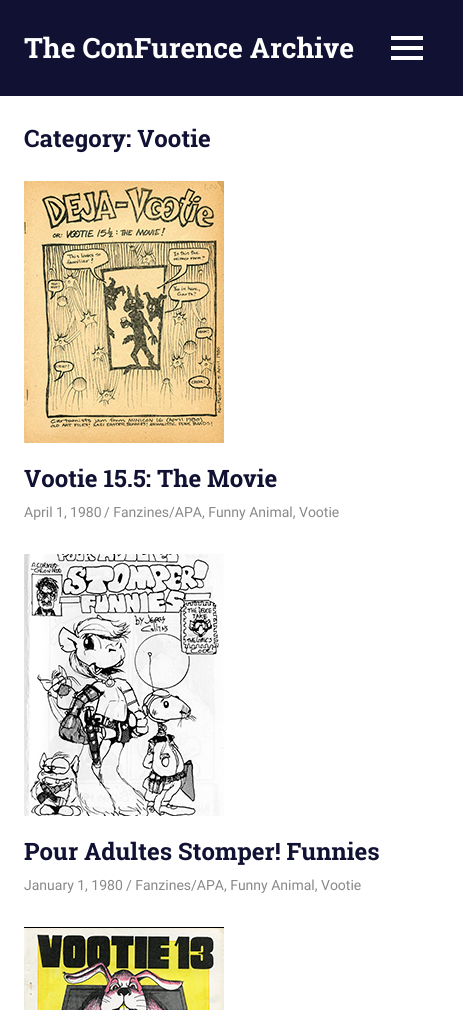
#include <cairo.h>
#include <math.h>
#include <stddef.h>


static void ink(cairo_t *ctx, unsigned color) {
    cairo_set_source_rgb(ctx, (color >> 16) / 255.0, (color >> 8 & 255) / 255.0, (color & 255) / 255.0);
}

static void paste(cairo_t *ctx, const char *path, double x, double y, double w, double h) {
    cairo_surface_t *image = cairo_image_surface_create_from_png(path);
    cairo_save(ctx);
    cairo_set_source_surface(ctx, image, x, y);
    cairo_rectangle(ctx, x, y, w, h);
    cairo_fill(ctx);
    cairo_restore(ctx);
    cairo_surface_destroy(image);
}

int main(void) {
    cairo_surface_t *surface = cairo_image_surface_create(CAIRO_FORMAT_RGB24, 463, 1010);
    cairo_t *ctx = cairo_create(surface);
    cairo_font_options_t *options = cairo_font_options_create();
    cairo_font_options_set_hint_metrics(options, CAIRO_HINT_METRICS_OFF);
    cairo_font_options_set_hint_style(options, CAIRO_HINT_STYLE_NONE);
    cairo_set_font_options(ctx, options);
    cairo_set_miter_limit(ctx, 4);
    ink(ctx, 0xFFFFFF);
    cairo_paint(ctx);
    ink(ctx, 0x111133);
    cairo_rectangle(ctx, 0, 0, 463, 96);
    cairo_fill(ctx);
    cairo_select_font_face(ctx, "Roboto Slab", CAIRO_FONT_SLANT_NORMAL, CAIRO_FONT_WEIGHT_BOLD);
    cairo_set_font_size(ctx, 28);
    ink(ctx, 0xFFFFFF);
    cairo_move_to(ctx, 24, 58);
    cairo_show_text(ctx, "The ConFurence Archive");
    paste(ctx, "media/1.png", 391, 36, 32, 24);
    cairo_set_font_size(ctx, 24);
    ink(ctx, 0x111133);
    cairo_move_to(ctx, 24, 147);
    cairo_show_text(ctx, "Category: Vootie");
    paste(ctx, "media/2.png", 24, 181, 200, 262);
    cairo_move_to(ctx, 24, 487);
    cairo_show_text(ctx, "Vootie 15.5: The Movie");
    cairo_select_font_face(ctx, "Roboto", CAIRO_FONT_SLANT_NORMAL, CAIRO_FONT_WEIGHT_NORMAL);
    cairo_set_font_size(ctx, 14);
    ink(ctx, 0x888888);
    cairo_move_to(ctx, 24, 517);
    cairo_show_text(ctx, "April 1, 1980");
    cairo_move_to(ctx, 104, 517);
    cairo_show_text(ctx, "/ Fanzines/APA, Funny Animal, Vootie");
    paste(ctx, "media/3.png", 24, 554, 200, 262);
    cairo_select_font_face(ctx, "Roboto Slab", CAIRO_FONT_SLANT_NORMAL, CAIRO_FONT_WEIGHT_BOLD);
    cairo_set_font_size(ctx, 24);
    ink(ctx, 0x111133);
    cairo_move_to(ctx, 24, 860);
    cairo_show_text(ctx, "Pour Adultes Stomper! Funnies");
    cairo_select_font_face(ctx, "Roboto", CAIRO_FONT_SLANT_NORMAL, CAIRO_FONT_WEIGHT_NORMAL);
    cairo_set_font_size(ctx, 14);
    ink(ctx, 0x888888);
    cairo_move_to(ctx, 24, 890);
    cairo_show_text(ctx, "January 1, 1980");
    cairo_move_to(ctx, 126, 890);
    cairo_show_text(ctx, "/ Fanzines/APA, Funny Animal, Vootie");
    paste(ctx, "media/4.png", 24, 927, 200, 83);
    cairo_surface_write_to_png(surface, "image.png");
    cairo_font_options_destroy(options);
    cairo_destroy(ctx);
    cairo_surface_destroy(surface);
    return 0;
}
